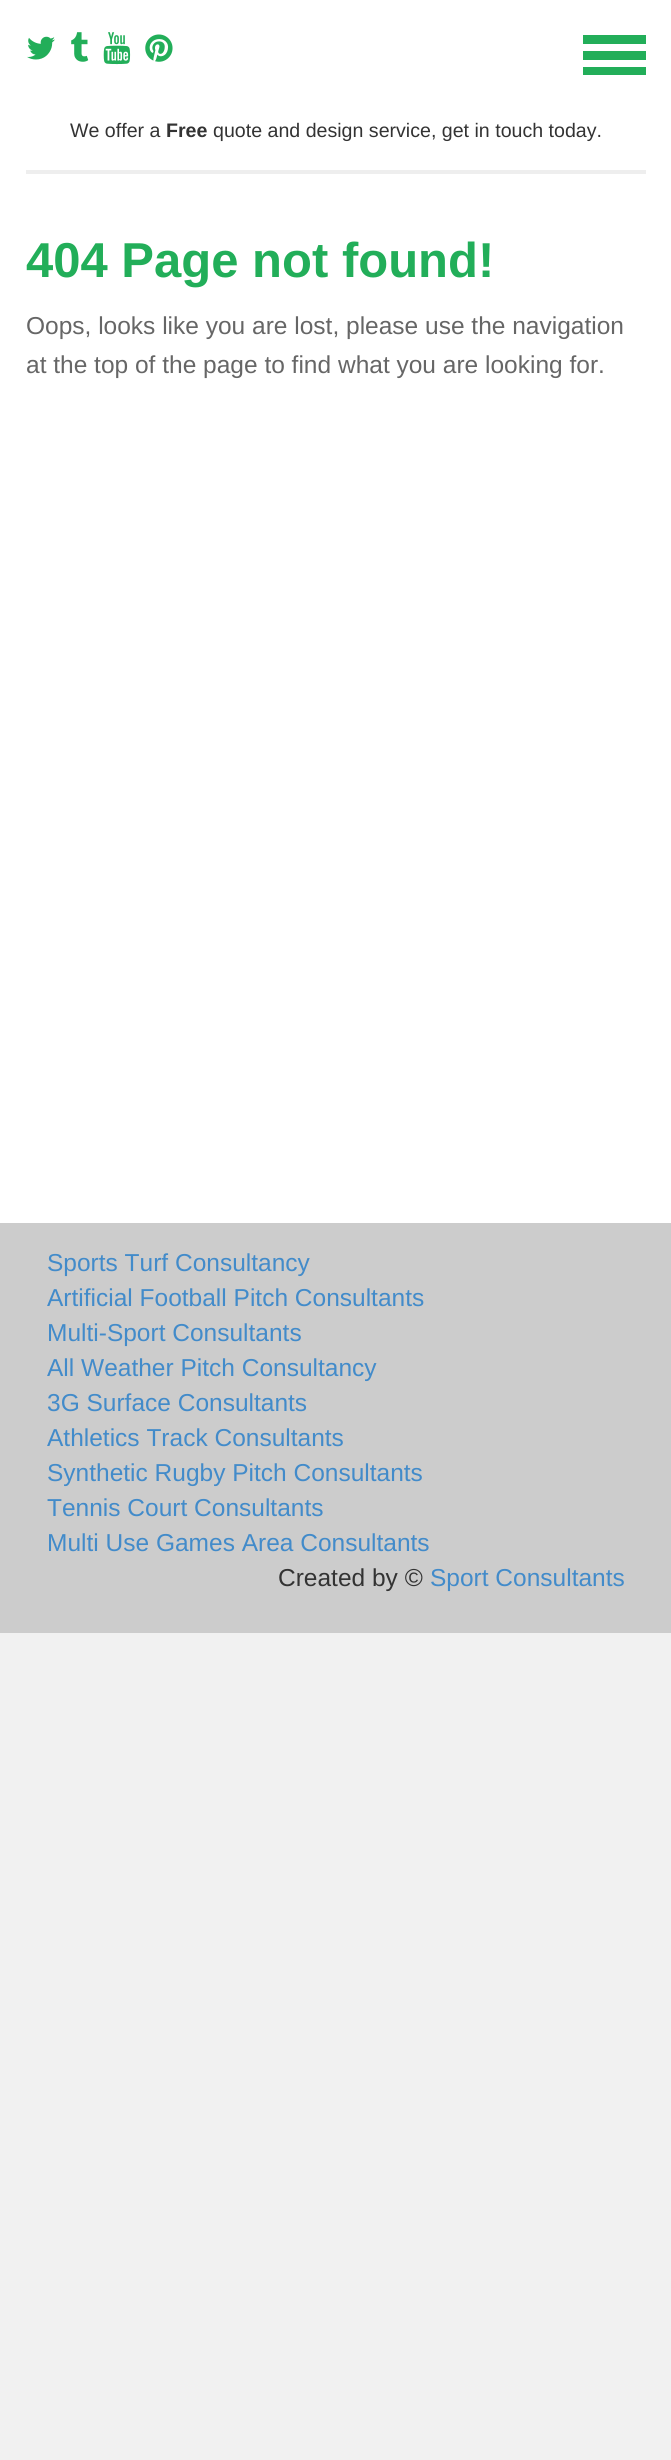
#include <cairo.h>
#include <math.h>
#include <stddef.h>

typedef struct { double x, y; const char *s; } line_t;
typedef struct { double x, y, w, h; unsigned color; } box_t;

static void ink(cairo_t *ctx, unsigned color) {
    cairo_set_source_rgb(ctx, (color >> 16) / 255.0, (color >> 8 & 255) / 255.0, (color & 255) / 255.0);
}

static void paste(cairo_t *ctx, const char *path, double x, double y, double w, double h) {
    cairo_surface_t *image = cairo_image_surface_create_from_png(path);
    cairo_save(ctx);
    cairo_set_source_surface(ctx, image, x, y);
    cairo_rectangle(ctx, x, y, w, h);
    cairo_fill(ctx);
    cairo_restore(ctx);
    cairo_surface_destroy(image);
}

int main(void) {
    cairo_surface_t *surface = cairo_image_surface_create(CAIRO_FORMAT_RGB24, 671, 2460);
    cairo_t *ctx = cairo_create(surface);
    cairo_font_options_t *options = cairo_font_options_create();
    cairo_font_options_set_hint_metrics(options, CAIRO_HINT_METRICS_OFF);
    cairo_font_options_set_hint_style(options, CAIRO_HINT_STYLE_NONE);
    cairo_set_font_options(ctx, options);
    cairo_set_miter_limit(ctx, 4);
    ink(ctx, 0xF1F1F1);
    cairo_paint(ctx);
    ink(ctx, 0xFFFFFF);
    cairo_rectangle(ctx, 0, 0, 671, 1223);
    cairo_fill(ctx);
    paste(ctx, "media/1.png", 27, 36, 28, 24);
    paste(ctx, "media/2.png", 71, 32, 18, 30);
    paste(ctx, "media/3.png", 103, 32, 28, 33);
    paste(ctx, "media/4.png", 145, 34, 28, 28);
    {
        static const box_t items[] = {
            {26, 170, 620, 4, 0xEEEEEE},
            {583, 35, 63, 9, 0x22AE59},
            {583, 51, 63, 9, 0x22AE59},
            {583, 67, 63, 8, 0x22AE59},
        };
        for (size_t i = 0; i < sizeof items / sizeof *items; i++) {
            ink(ctx, items[i].color);
            cairo_rectangle(ctx, items[i].x, items[i].y, items[i].w, items[i].h);
            cairo_fill(ctx);
        }
    }
    cairo_select_font_face(ctx, "Liberation Sans", CAIRO_FONT_SLANT_NORMAL, CAIRO_FONT_WEIGHT_NORMAL);
    cairo_set_font_size(ctx, 19.6);
    ink(ctx, 0x333333);
    cairo_move_to(ctx, 70, 137);
    cairo_show_text(ctx, "We offer a");
    cairo_select_font_face(ctx, "Liberation Sans", CAIRO_FONT_SLANT_NORMAL, CAIRO_FONT_WEIGHT_BOLD);
    cairo_move_to(ctx, 166, 137);
    cairo_show_text(ctx, "Free");
    cairo_select_font_face(ctx, "Liberation Sans", CAIRO_FONT_SLANT_NORMAL, CAIRO_FONT_WEIGHT_NORMAL);
    cairo_move_to(ctx, 213, 137);
    cairo_show_text(ctx, "quote and design service, get in touch today.");
    cairo_select_font_face(ctx, "Liberation Sans", CAIRO_FONT_SLANT_NORMAL, CAIRO_FONT_WEIGHT_BOLD);
    cairo_set_font_size(ctx, 49);
    ink(ctx, 0x22AE59);
    cairo_move_to(ctx, 26, 277);
    cairo_show_text(ctx, "404 Page not found!");
    cairo_select_font_face(ctx, "Liberation Sans", CAIRO_FONT_SLANT_NORMAL, CAIRO_FONT_WEIGHT_NORMAL);
    cairo_set_font_size(ctx, 24.5);
    ink(ctx, 0x666666);
    cairo_move_to(ctx, 26, 334);
    cairo_show_text(ctx, "Oops, looks like you are lost, please use the navigation");
    cairo_move_to(ctx, 26, 373);
    cairo_show_text(ctx, "at the top of the page to find what you are looking for.");
    ink(ctx, 0xCCCCCC);
    cairo_rectangle(ctx, 0, 1223, 671, 410);
    cairo_fill(ctx);
    ink(ctx, 0x428BCA);
    {
        static const line_t items[] = {
            {47, 1271, "Sports Turf Consultancy"},
            {47, 1306, "Artificial Football Pitch Consultants"},
            {47, 1341, "Multi-Sport Consultants"},
            {47, 1376, "All Weather Pitch Consultancy"},
            {47, 1411, "3G Surface Consultants"},
            {47, 1446, "Athletics Track Consultants"},
            {47, 1481, "Synthetic Rugby Pitch Consultants"},
            {47, 1516, "Tennis Court Consultants"},
            {47, 1551, "Multi Use Games Area Consultants"},
        };
        for (size_t i = 0; i < sizeof items / sizeof *items; i++) {
            cairo_move_to(ctx, items[i].x, items[i].y);
            cairo_show_text(ctx, items[i].s);
        }
    }
    ink(ctx, 0x333333);
    cairo_move_to(ctx, 278, 1586);
    cairo_show_text(ctx, "Created by ©");
    ink(ctx, 0x428BCA);
    cairo_move_to(ctx, 430, 1586);
    cairo_show_text(ctx, "Sport Consultants");
    cairo_surface_write_to_png(surface, "image.png");
    cairo_font_options_destroy(options);
    cairo_destroy(ctx);
    cairo_surface_destroy(surface);
    return 0;
}
